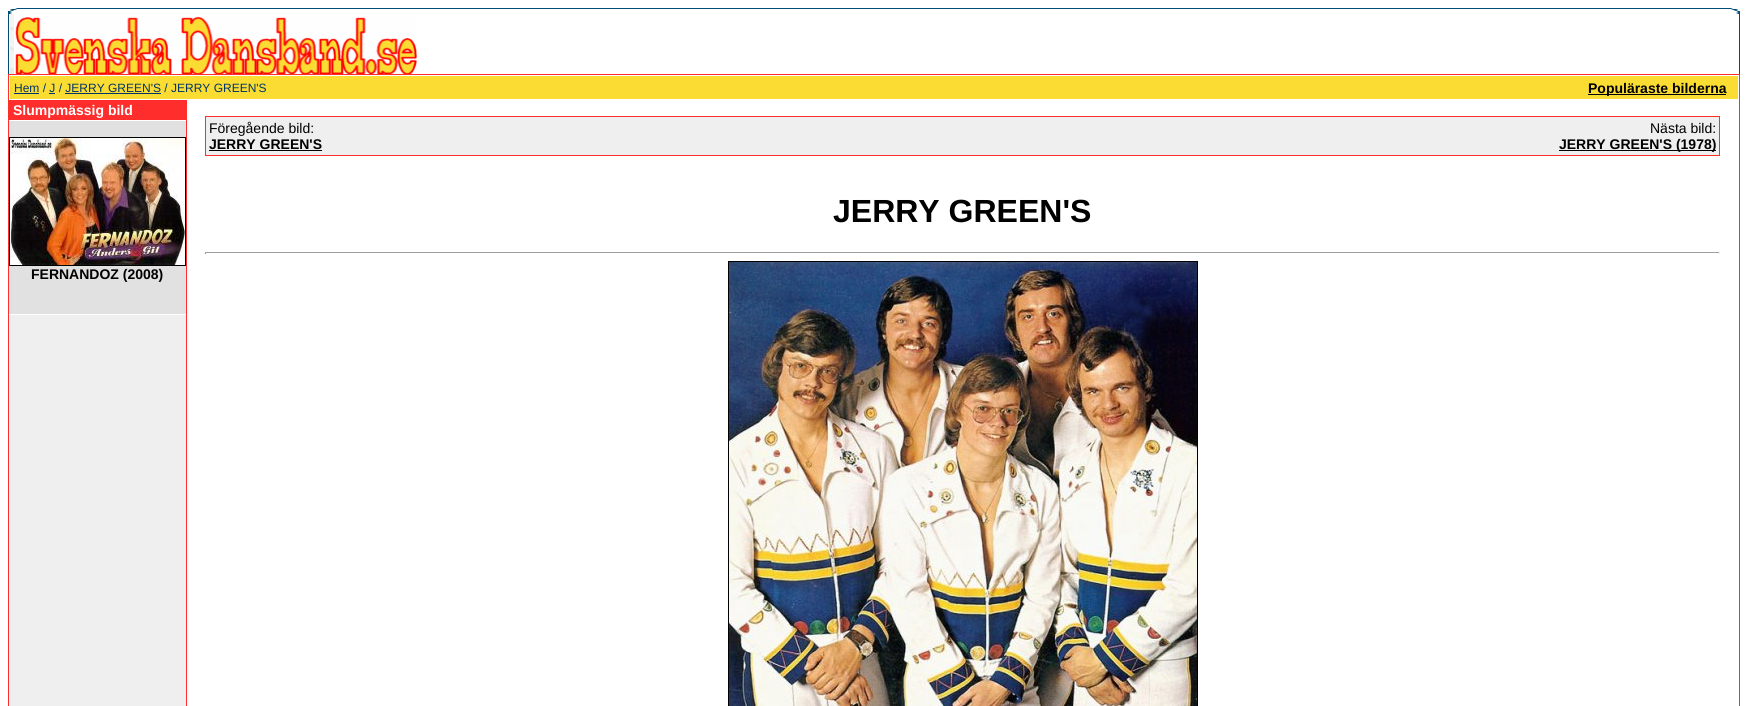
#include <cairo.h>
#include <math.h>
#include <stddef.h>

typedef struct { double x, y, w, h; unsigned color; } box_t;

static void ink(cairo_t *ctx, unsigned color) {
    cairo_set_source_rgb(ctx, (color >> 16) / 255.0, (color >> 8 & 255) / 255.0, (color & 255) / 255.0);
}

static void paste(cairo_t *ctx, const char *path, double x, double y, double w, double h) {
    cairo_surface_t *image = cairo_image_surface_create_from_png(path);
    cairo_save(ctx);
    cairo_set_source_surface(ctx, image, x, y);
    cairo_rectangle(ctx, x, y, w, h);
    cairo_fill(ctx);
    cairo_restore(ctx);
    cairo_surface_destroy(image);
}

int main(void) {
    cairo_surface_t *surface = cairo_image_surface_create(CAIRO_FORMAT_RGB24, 1748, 706);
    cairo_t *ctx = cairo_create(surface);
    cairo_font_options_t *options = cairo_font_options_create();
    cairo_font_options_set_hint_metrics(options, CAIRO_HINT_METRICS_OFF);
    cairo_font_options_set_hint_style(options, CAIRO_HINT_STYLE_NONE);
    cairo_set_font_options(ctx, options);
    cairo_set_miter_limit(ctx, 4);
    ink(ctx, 0xFFFFFF);
    cairo_paint(ctx);
    paste(ctx, "media/1.png", 8, 8, 1732, 6);
    paste(ctx, "media/2.png", 8, 14, 6, 60);
    paste(ctx, "media/3.png", 15, 16, 402, 58);
    {
        static const box_t items[] = {
            {1739, 14, 1, 60, 0x004C75},
            {8, 74, 1732, 632, 0xFF2E2C},
            {9, 75, 1730, 631, 0xFFFFFF},
            {10, 76, 1728, 23, 0xFBDC33},
        };
        for (size_t i = 0; i < sizeof items / sizeof *items; i++) {
            ink(ctx, items[i].color);
            cairo_rectangle(ctx, items[i].x, items[i].y, items[i].w, items[i].h);
            cairo_fill(ctx);
        }
    }
    cairo_select_font_face(ctx, "Liberation Sans", CAIRO_FONT_SLANT_NORMAL, CAIRO_FONT_WEIGHT_NORMAL);
    cairo_set_font_size(ctx, 12);
    ink(ctx, 0x003366);
    cairo_move_to(ctx, 14, 92);
    cairo_show_text(ctx, "Hem / J / JERRY GREEN'S / JERRY GREEN'S");
    {
        static const box_t items[] = {
            {14, 93, 25, 1, 0x003366},
            {49, 93, 6, 1, 0x003366},
            {65, 93, 96, 1, 0x003366},
            {1588, 94, 138, 1, 0x000000},
        };
        for (size_t i = 0; i < sizeof items / sizeof *items; i++) {
            ink(ctx, items[i].color);
            cairo_rectangle(ctx, items[i].x, items[i].y, items[i].w, items[i].h);
            cairo_fill(ctx);
        }
    }
    cairo_select_font_face(ctx, "Liberation Sans", CAIRO_FONT_SLANT_NORMAL, CAIRO_FONT_WEIGHT_BOLD);
    cairo_set_font_size(ctx, 14);
    cairo_move_to(ctx, 1588, 93);
    cairo_show_text(ctx, "Populäraste bilderna");
    ink(ctx, 0xEFEFEF);
    cairo_rectangle(ctx, 9, 315, 177, 391);
    cairo_fill(ctx);
    ink(ctx, 0xFF2E2C);
    cairo_rectangle(ctx, 9, 100, 177, 20);
    cairo_fill(ctx);
    ink(ctx, 0xFFFFFF);
    cairo_move_to(ctx, 13, 115);
    cairo_show_text(ctx, "Slumpmässig bild");
    ink(ctx, 0xE1E1E1);
    cairo_rectangle(ctx, 9, 121, 177, 193);
    cairo_fill(ctx);
    cairo_rectangle(ctx, 9.5, 137.5, 176, 128);
    ink(ctx, 0x000000);
    cairo_set_line_width(ctx, 1);
    cairo_stroke(ctx);
    paste(ctx, "media/4.png", 10, 138, 175, 127);
    cairo_move_to(ctx, 31, 279);
    cairo_show_text(ctx, "FERNANDOZ (2008)");
    {
        static const box_t items[] = {
            {186, 100, 1, 606, 0xFF2E2C},
            {205, 116, 1515, 40, 0xFF2E2C},
            {206, 117, 1513, 38, 0xEFEFEF},
        };
        for (size_t i = 0; i < sizeof items / sizeof *items; i++) {
            ink(ctx, items[i].color);
            cairo_rectangle(ctx, items[i].x, items[i].y, items[i].w, items[i].h);
            cairo_fill(ctx);
        }
    }
    cairo_select_font_face(ctx, "Liberation Sans", CAIRO_FONT_SLANT_NORMAL, CAIRO_FONT_WEIGHT_NORMAL);
    ink(ctx, 0x000000);
    cairo_move_to(ctx, 209, 133);
    cairo_show_text(ctx, "Föregående bild:");
    cairo_select_font_face(ctx, "Liberation Sans", CAIRO_FONT_SLANT_NORMAL, CAIRO_FONT_WEIGHT_BOLD);
    cairo_move_to(ctx, 209, 149);
    cairo_show_text(ctx, "JERRY GREEN'S");
    cairo_rectangle(ctx, 209, 150, 113, 1);
    cairo_fill(ctx);
    cairo_select_font_face(ctx, "Liberation Sans", CAIRO_FONT_SLANT_NORMAL, CAIRO_FONT_WEIGHT_NORMAL);
    cairo_move_to(ctx, 1650, 133);
    cairo_show_text(ctx, "Nästa bild:");
    cairo_rectangle(ctx, 1559, 150, 157, 1);
    cairo_fill(ctx);
    cairo_select_font_face(ctx, "Liberation Sans", CAIRO_FONT_SLANT_NORMAL, CAIRO_FONT_WEIGHT_BOLD);
    cairo_move_to(ctx, 1559, 149);
    cairo_show_text(ctx, "JERRY GREEN'S (1978)");
    cairo_set_font_size(ctx, 32);
    cairo_move_to(ctx, 833, 222);
    cairo_show_text(ctx, "JERRY GREEN'S");
    {
        static const box_t items[] = {
            {205, 252, 1515, 1, 0x9F9F9F},
            {1719, 252, 1, 2, 0xEEEEEE},
            {205, 252, 1, 2, 0x9F9F9F},
        };
        for (size_t i = 0; i < sizeof items / sizeof *items; i++) {
            ink(ctx, items[i].color);
            cairo_rectangle(ctx, items[i].x, items[i].y, items[i].w, items[i].h);
            cairo_fill(ctx);
        }
    }
    cairo_rectangle(ctx, 728.5, 261.5, 469, 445);
    ink(ctx, 0x000000);
    cairo_stroke(ctx);
    paste(ctx, "media/5.png", 729, 262, 468, 444);
    cairo_surface_write_to_png(surface, "image.png");
    cairo_font_options_destroy(options);
    cairo_destroy(ctx);
    cairo_surface_destroy(surface);
    return 0;
}
